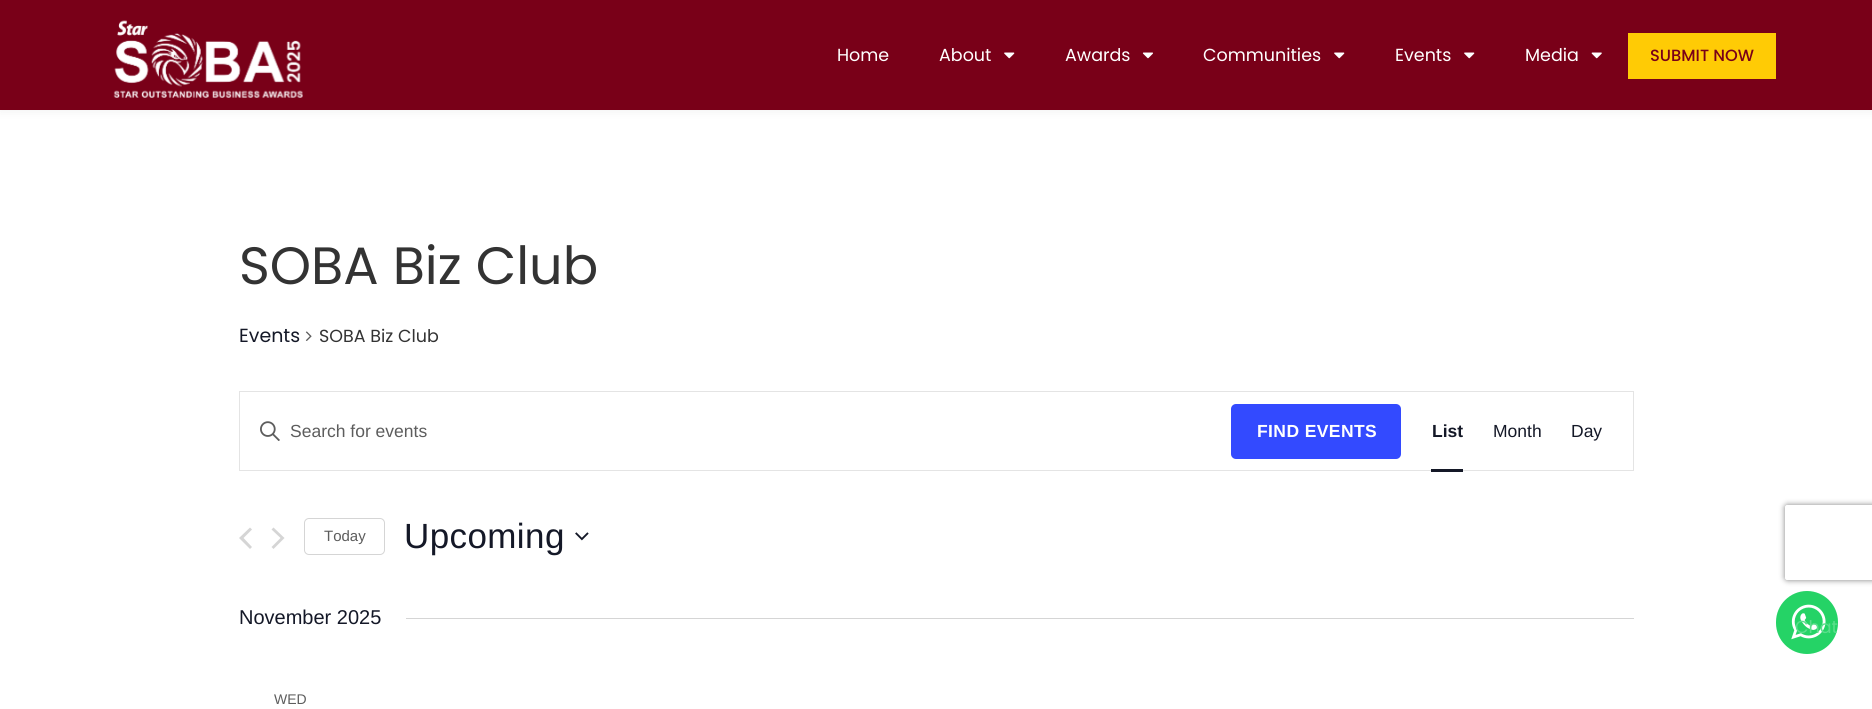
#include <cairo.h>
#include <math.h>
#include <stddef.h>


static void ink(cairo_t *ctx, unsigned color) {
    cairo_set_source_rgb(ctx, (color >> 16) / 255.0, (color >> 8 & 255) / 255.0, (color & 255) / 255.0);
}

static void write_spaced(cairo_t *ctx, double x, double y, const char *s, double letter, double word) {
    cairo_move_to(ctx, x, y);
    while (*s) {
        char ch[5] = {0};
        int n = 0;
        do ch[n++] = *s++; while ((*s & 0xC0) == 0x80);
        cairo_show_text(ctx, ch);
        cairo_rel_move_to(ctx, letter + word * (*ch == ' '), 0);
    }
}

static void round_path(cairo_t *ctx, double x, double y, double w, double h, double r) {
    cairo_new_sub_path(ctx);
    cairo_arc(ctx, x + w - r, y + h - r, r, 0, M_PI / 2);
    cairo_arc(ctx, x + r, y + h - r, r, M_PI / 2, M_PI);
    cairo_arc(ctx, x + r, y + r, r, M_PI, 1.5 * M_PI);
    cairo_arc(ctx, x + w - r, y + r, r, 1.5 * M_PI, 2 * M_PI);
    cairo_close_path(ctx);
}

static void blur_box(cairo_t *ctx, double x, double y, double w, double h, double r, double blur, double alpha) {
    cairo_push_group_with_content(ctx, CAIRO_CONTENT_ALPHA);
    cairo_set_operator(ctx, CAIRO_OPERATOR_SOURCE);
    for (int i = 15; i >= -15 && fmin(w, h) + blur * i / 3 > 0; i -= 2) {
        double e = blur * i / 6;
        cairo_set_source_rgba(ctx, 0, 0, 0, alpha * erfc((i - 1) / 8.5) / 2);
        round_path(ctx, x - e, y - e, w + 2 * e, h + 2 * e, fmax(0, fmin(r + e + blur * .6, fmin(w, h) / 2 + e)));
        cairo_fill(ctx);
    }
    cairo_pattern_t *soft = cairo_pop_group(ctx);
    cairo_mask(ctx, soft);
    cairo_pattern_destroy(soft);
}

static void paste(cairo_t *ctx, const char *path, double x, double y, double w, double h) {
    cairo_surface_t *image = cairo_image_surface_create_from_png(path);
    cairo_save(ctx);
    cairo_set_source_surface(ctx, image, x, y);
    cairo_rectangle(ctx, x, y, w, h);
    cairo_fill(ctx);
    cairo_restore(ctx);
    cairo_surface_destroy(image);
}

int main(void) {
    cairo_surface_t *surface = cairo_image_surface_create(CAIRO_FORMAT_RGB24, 1872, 709);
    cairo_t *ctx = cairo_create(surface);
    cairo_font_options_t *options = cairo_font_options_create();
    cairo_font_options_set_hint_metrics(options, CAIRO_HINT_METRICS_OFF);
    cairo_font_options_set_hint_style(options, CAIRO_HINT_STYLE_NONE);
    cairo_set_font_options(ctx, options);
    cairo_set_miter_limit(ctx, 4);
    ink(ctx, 0xFFFFFF);
    cairo_paint(ctx);
    ink(ctx, 0x000000);
    blur_box(ctx, 0, 0, 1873, 110, 0, 6, 0.07);
    ink(ctx, 0x790018);
    cairo_rectangle(ctx, 0, 0, 1872, 110);
    cairo_fill(ctx);
    paste(ctx, "media/1.png", 113, 20, 190, 78);
    cairo_select_font_face(ctx, "Poppins", CAIRO_FONT_SLANT_NORMAL, CAIRO_FONT_WEIGHT_NORMAL);
    cairo_set_font_size(ctx, 17.5);
    ink(ctx, 0xFFFFFF);
    cairo_move_to(ctx, 837, 61);
    cairo_show_text(ctx, "Home");
    cairo_move_to(ctx, 939, 61);
    cairo_show_text(ctx, "About");
    paste(ctx, "media/2.png", 1004, 52, 11, 7);
    cairo_move_to(ctx, 1065, 61);
    cairo_show_text(ctx, "Awards");
    paste(ctx, "media/3.png", 1142, 52, 11, 7);
    cairo_move_to(ctx, 1203, 61);
    cairo_show_text(ctx, "Communities");
    paste(ctx, "media/2.png", 1334, 52, 11, 7);
    cairo_move_to(ctx, 1395, 61);
    cairo_show_text(ctx, "Events");
    paste(ctx, "media/2.png", 1464, 52, 11, 7);
    cairo_move_to(ctx, 1525, 61);
    cairo_show_text(ctx, "Media");
    paste(ctx, "media/4.png", 1591, 52, 11, 7);
    ink(ctx, 0xFFCB05);
    cairo_rectangle(ctx, 1628, 33, 148, 46);
    cairo_fill(ctx);
    cairo_select_font_face(ctx, "Poppins Medium", CAIRO_FONT_SLANT_NORMAL, CAIRO_FONT_WEIGHT_NORMAL);
    cairo_set_font_size(ctx, 16.25);
    ink(ctx, 0x790018);
    cairo_move_to(ctx, 1650, 61);
    cairo_show_text(ctx, "SUBMIT NOW");
    cairo_select_font_face(ctx, "Poppins", CAIRO_FONT_SLANT_NORMAL, CAIRO_FONT_WEIGHT_NORMAL);
    cairo_set_font_size(ctx, 52.5);
    ink(ctx, 0x333333);
    cairo_move_to(ctx, 239, 284);
    cairo_show_text(ctx, "SOBA Biz Club");
    cairo_set_font_size(ctx, 19);
    ink(ctx, 0x141827);
    cairo_move_to(ctx, 239, 342);
    cairo_show_text(ctx, "Events");
    paste(ctx, "media/5.png", 305, 331, 7, 10);
    cairo_set_font_size(ctx, 17.5);
    ink(ctx, 0x333333);
    cairo_move_to(ctx, 319, 342);
    cairo_show_text(ctx, "SOBA Biz Club");
    cairo_rectangle(ctx, 239.5, 391.5, 1394, 79);
    ink(ctx, 0xE4E4E4);
    cairo_set_line_width(ctx, 1);
    cairo_stroke(ctx);
    paste(ctx, "media/6.png", 260, 421, 20, 20);
    cairo_select_font_face(ctx, "Liberation Sans", CAIRO_FONT_SLANT_NORMAL, CAIRO_FONT_WEIGHT_NORMAL);
    ink(ctx, 0x5D5D5D);
    cairo_move_to(ctx, 290, 437);
    cairo_show_text(ctx, "Search for events");
    ink(ctx, 0x334AFF);
    round_path(ctx, 1231, 404, 170, 55, 5);
    cairo_fill(ctx);
    cairo_select_font_face(ctx, "Liberation Sans", CAIRO_FONT_SLANT_NORMAL, CAIRO_FONT_WEIGHT_BOLD);
    ink(ctx, 0xFFFFFF);
    write_spaced(ctx, 1257, 437, "FIND EVENTS", 0.4, 0);
    ink(ctx, 0x141827);
    cairo_move_to(ctx, 1432, 437);
    cairo_show_text(ctx, "List");
    cairo_rectangle(ctx, 1431, 469, 32, 3);
    cairo_fill(ctx);
    cairo_select_font_face(ctx, "Liberation Sans", CAIRO_FONT_SLANT_NORMAL, CAIRO_FONT_WEIGHT_NORMAL);
    cairo_move_to(ctx, 1493, 437);
    cairo_show_text(ctx, "Month");
    cairo_move_to(ctx, 1571, 437);
    cairo_show_text(ctx, "Day");
    ink(ctx, 0xD5D5D5);
    cairo_new_path(ctx);
    cairo_move_to(ctx, 252, 547);
    cairo_line_to(ctx, 250, 549);
    cairo_line_to(ctx, 239, 538);
    cairo_line_to(ctx, 250, 527.5);
    cairo_line_to(ctx, 252, 529.5);
    cairo_line_to(ctx, 243.5, 538);
    cairo_close_path(ctx);
    cairo_move_to(ctx, 271.5, 529.5);
    cairo_line_to(ctx, 273.5, 527.5);
    cairo_line_to(ctx, 284.5, 538);
    cairo_line_to(ctx, 273.5, 549);
    cairo_line_to(ctx, 271.5, 547);
    cairo_line_to(ctx, 280.5, 538);
    cairo_close_path(ctx);
    cairo_fill(ctx);
    round_path(ctx, 304.5, 518.5, 80, 36, 4.5);
    cairo_stroke(ctx);
    cairo_set_font_size(ctx, 15);
    ink(ctx, 0x5D5D5D);
    cairo_move_to(ctx, 324, 541);
    cairo_show_text(ctx, "Today");
    cairo_set_font_size(ctx, 35);
    ink(ctx, 0x141827);
    write_spaced(ctx, 404, 548, "Upcoming", 0.4, 0);
    paste(ctx, "media/7.png", 575, 532, 14, 9);
    cairo_set_font_size(ctx, 20);
    cairo_move_to(ctx, 239, 624);
    cairo_show_text(ctx, "November 2025");
    ink(ctx, 0xD5D5D5);
    cairo_rectangle(ctx, 406, 618, 1228, 1);
    cairo_fill(ctx);
    cairo_set_font_size(ctx, 14);
    ink(ctx, 0x5D5D5D);
    cairo_move_to(ctx, 274, 704);
    cairo_show_text(ctx, "WED");
    ink(ctx, 0x25D366);
    round_path(ctx, 1776, 591, 62, 63, 31);
    cairo_fill(ctx);
    paste(ctx, "media/8.png", 1791, 604, 35, 36);
    cairo_save(ctx);
    round_path(ctx, 1776, 591, 62, 63, 31);
    cairo_clip(ctx);
    cairo_select_font_face(ctx, "Poppins", CAIRO_FONT_SLANT_NORMAL, CAIRO_FONT_WEIGHT_NORMAL);
    cairo_set_font_size(ctx, 17.5);
    ink(ctx, 0x5BDE8C);
    cairo_move_to(ctx, 1795, 633);
    cairo_show_text(ctx, "Chat");
    cairo_restore(ctx);
    cairo_save(ctx);
    cairo_set_fill_rule(ctx, CAIRO_FILL_RULE_EVEN_ODD);
    cairo_new_path(ctx);
    cairo_move_to(ctx, 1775, 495);
    cairo_line_to(ctx, 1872, 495);
    cairo_line_to(ctx, 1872, 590);
    cairo_line_to(ctx, 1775, 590);
    cairo_close_path(ctx);
    cairo_move_to(ctx, 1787.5, 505);
    cairo_line_to(ctx, 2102.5, 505);
    cairo_curve_to(ctx, 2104, 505, 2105, 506, 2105, 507.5);
    cairo_line_to(ctx, 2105, 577.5);
    cairo_curve_to(ctx, 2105, 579, 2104, 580, 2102.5, 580);
    cairo_line_to(ctx, 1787.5, 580);
    cairo_curve_to(ctx, 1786, 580, 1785, 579, 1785, 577.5);
    cairo_line_to(ctx, 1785, 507.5);
    cairo_curve_to(ctx, 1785, 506, 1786, 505, 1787.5, 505);
    cairo_close_path(ctx);
    cairo_clip(ctx);
    ink(ctx, 0x808080);
    blur_box(ctx, 1785, 505, 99, 75, 2.5, 3, 1);
    cairo_restore(ctx);
    cairo_surface_write_to_png(surface, "image.png");
    cairo_font_options_destroy(options);
    cairo_destroy(ctx);
    cairo_surface_destroy(surface);
    return 0;
}
